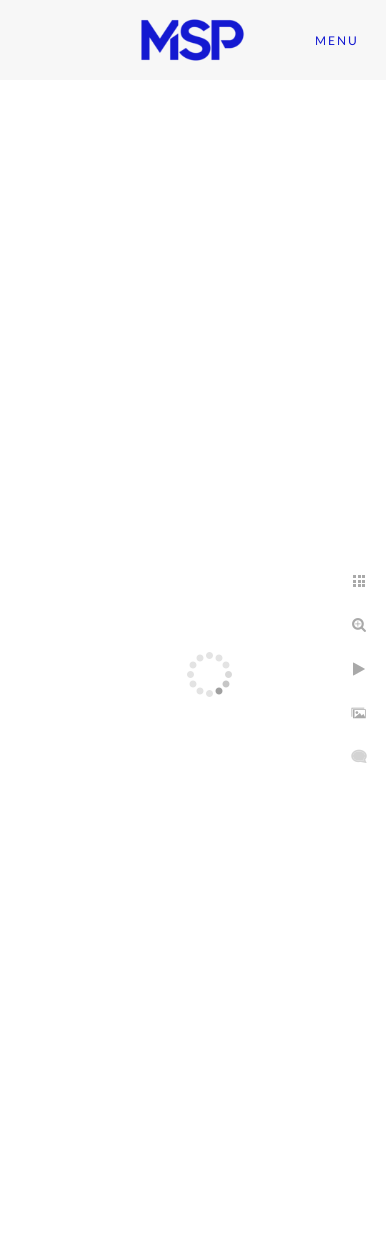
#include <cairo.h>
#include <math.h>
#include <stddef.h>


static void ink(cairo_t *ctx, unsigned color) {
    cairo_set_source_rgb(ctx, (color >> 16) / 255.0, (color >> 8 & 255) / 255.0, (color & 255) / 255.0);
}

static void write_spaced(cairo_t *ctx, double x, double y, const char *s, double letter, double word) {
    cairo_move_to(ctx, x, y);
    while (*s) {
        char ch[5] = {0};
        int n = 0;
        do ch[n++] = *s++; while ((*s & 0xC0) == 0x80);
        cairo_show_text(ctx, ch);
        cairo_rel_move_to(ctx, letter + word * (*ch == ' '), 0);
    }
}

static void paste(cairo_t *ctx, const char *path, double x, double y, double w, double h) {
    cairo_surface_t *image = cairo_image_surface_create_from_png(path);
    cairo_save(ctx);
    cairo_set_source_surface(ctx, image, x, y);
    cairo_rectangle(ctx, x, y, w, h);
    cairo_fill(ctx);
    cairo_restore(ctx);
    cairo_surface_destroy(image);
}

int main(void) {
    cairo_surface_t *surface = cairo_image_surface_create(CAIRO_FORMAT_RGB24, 386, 1238);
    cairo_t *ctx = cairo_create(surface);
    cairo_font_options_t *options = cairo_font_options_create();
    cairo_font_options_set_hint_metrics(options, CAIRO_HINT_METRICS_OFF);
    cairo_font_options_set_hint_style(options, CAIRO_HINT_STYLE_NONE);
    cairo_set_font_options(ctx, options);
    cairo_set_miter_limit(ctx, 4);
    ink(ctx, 0xFFFFFF);
    cairo_paint(ctx);
    ink(ctx, 0xF7F7F7);
    cairo_rectangle(ctx, 0, 0, 386, 80);
    cairo_fill(ctx);
    paste(ctx, "media/1.png", 141, 19, 104, 42);
    cairo_select_font_face(ctx, "Lato", CAIRO_FONT_SLANT_NORMAL, CAIRO_FONT_WEIGHT_NORMAL);
    cairo_set_font_size(ctx, 12);
    ink(ctx, 0x141AD1);
    write_spaced(ctx, 315, 45, "MENU", 2, 0);
    paste(ctx, "media/2.png", 187, 652, 45, 45);
    paste(ctx, "media/3.png", 353, 575, 12, 12);
    paste(ctx, "media/4.png", 352, 618, 14, 14);
    paste(ctx, "media/5.png", 353, 662, 12, 14);
    paste(ctx, "media/6.png", 351, 707, 15, 12);
    paste(ctx, "media/7.png", 351, 749, 16, 14);
    cairo_surface_write_to_png(surface, "image.png");
    cairo_font_options_destroy(options);
    cairo_destroy(ctx);
    cairo_surface_destroy(surface);
    return 0;
}
